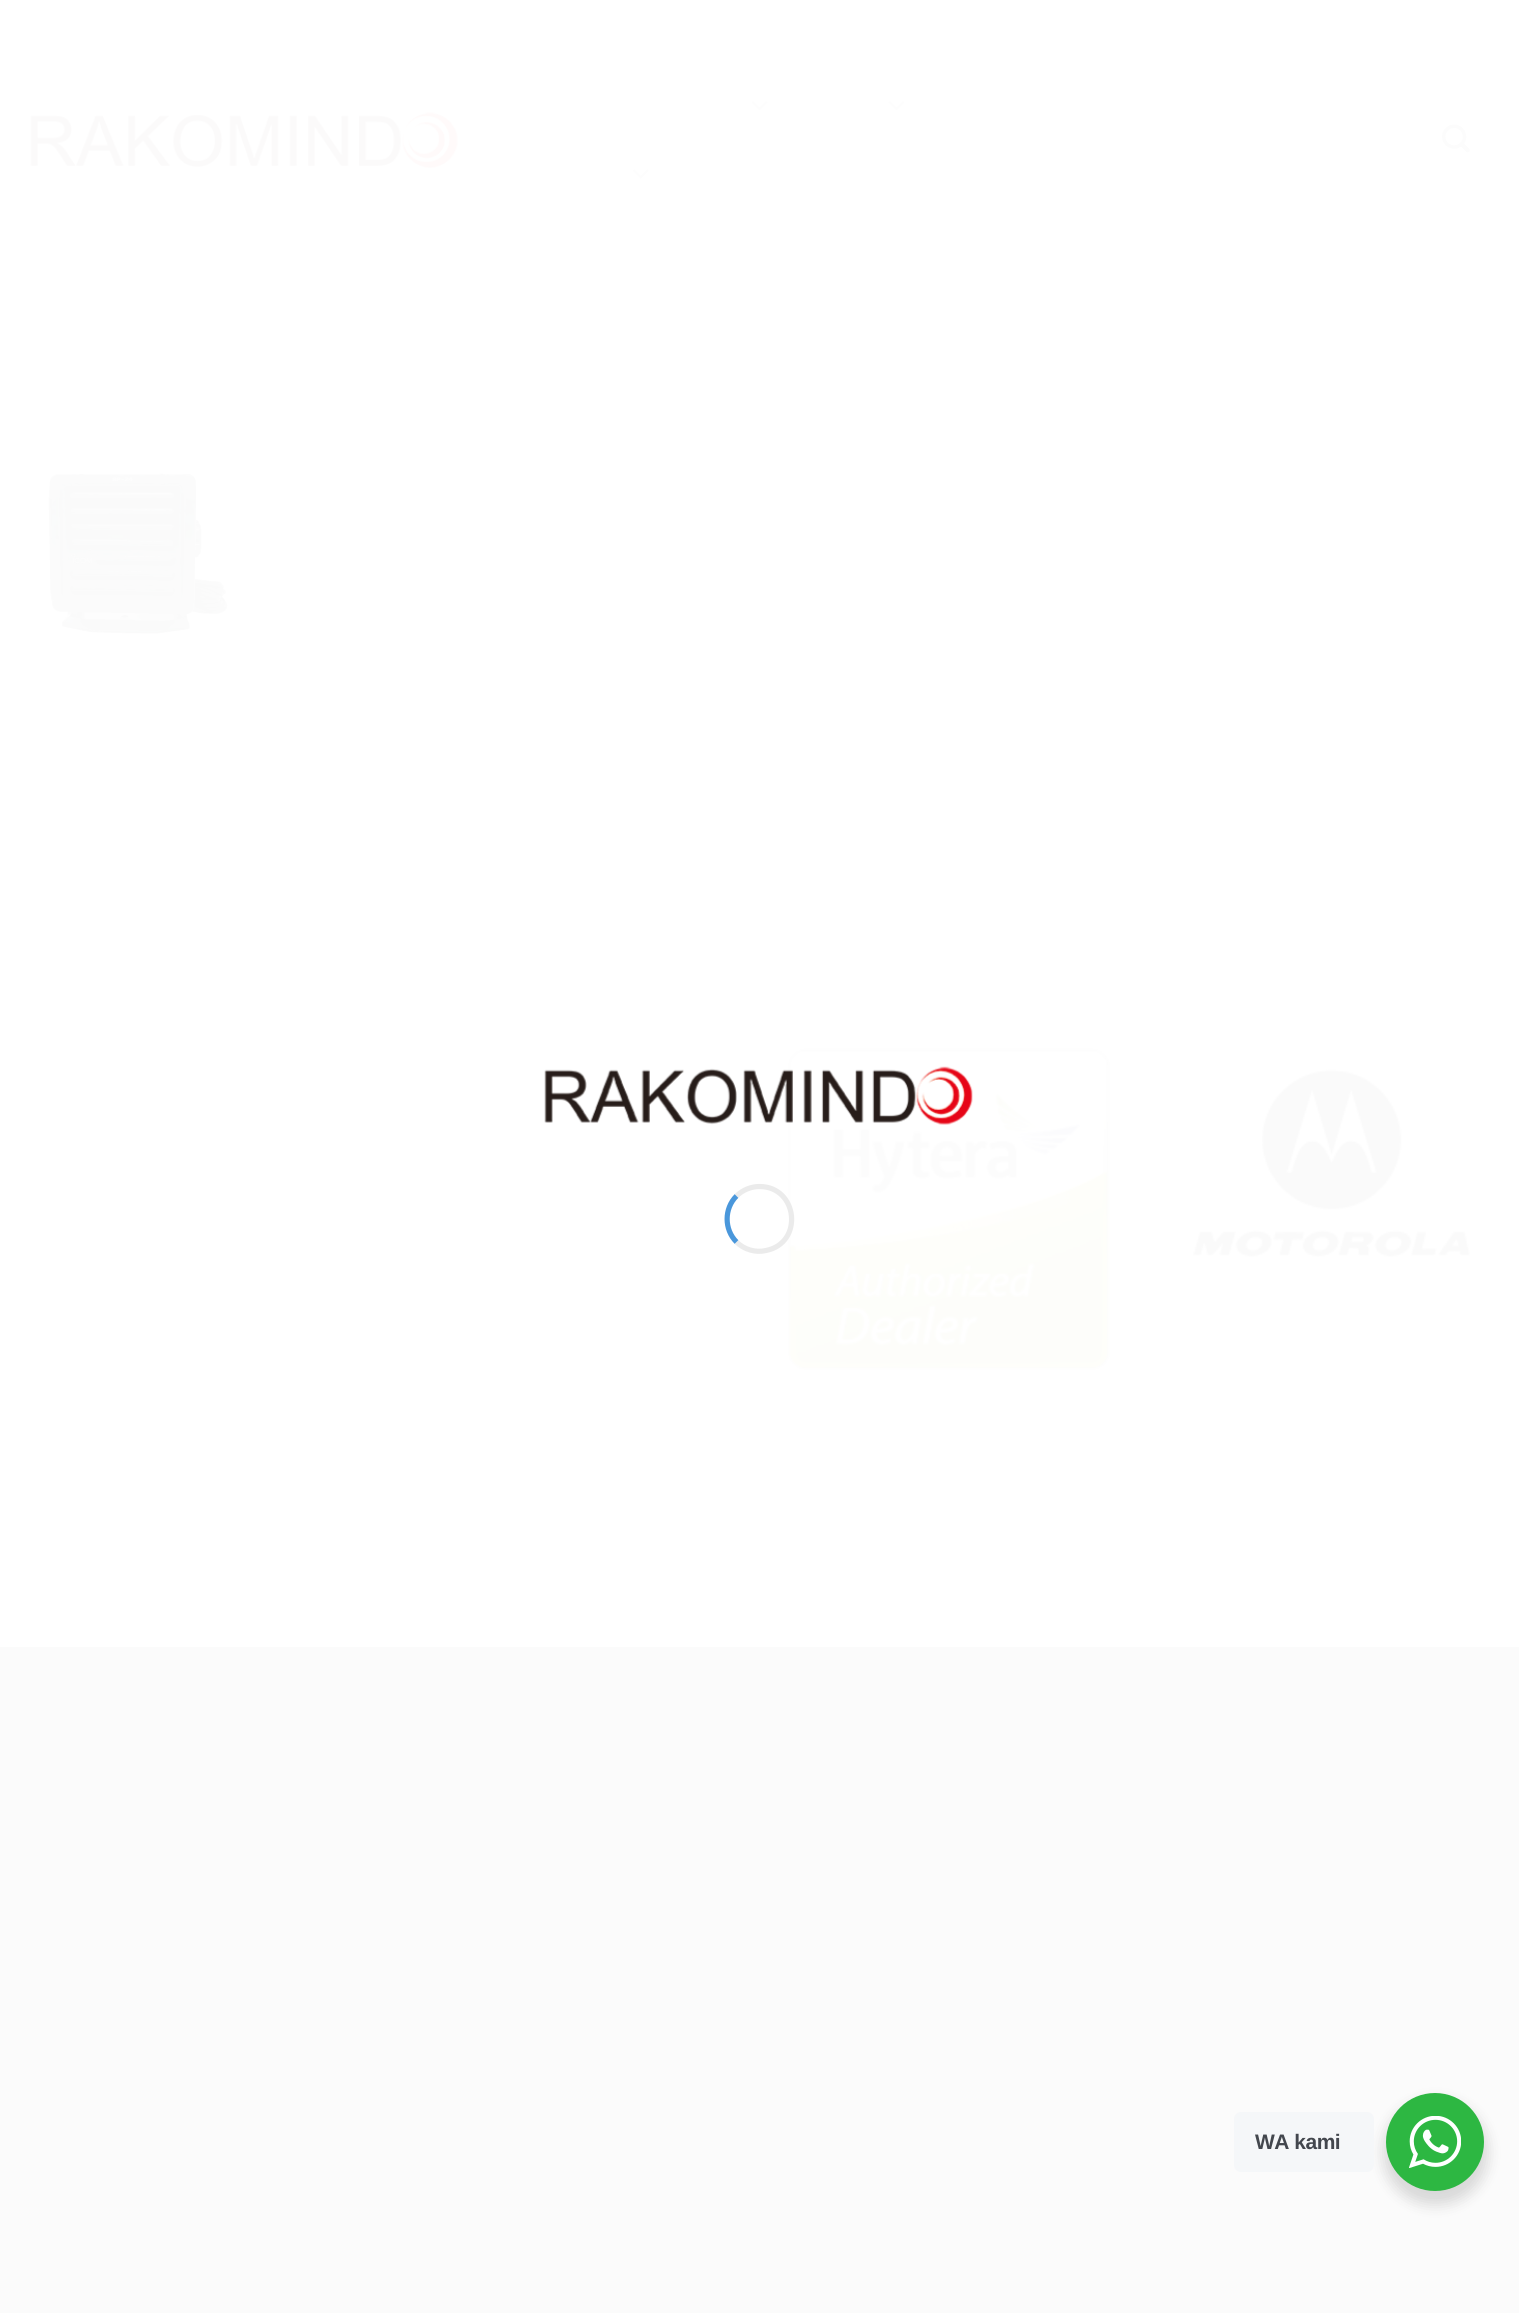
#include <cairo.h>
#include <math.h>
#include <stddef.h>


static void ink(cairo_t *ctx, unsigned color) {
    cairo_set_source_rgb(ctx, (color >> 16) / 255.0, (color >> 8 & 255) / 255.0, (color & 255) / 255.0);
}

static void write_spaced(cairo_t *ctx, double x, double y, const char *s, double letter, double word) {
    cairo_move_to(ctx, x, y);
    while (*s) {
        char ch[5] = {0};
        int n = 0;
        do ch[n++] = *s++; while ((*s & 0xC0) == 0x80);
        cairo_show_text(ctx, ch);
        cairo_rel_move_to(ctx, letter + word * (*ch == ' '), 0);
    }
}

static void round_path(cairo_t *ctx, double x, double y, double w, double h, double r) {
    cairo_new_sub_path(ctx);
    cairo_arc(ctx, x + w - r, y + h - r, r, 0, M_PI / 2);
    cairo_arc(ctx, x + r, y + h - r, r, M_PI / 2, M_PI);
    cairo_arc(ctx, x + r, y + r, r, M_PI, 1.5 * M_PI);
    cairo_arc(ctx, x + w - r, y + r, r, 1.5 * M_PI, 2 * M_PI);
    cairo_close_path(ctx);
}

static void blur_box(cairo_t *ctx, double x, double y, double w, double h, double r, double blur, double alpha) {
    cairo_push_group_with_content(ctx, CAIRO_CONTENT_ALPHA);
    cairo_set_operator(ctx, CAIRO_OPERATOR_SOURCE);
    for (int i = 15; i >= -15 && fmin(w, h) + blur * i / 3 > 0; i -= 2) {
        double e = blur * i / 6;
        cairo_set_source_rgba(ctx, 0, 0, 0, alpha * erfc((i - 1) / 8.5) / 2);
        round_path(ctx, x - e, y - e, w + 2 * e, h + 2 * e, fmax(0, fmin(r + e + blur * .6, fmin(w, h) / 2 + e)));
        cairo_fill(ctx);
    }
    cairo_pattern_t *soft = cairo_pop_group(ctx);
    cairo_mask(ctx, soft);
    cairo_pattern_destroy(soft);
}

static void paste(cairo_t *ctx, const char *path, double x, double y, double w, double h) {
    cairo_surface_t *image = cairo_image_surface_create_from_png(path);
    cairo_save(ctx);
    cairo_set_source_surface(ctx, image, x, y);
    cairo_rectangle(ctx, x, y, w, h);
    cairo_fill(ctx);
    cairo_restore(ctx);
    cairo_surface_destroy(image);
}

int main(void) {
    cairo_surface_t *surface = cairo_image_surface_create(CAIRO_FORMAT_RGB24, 1519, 2313);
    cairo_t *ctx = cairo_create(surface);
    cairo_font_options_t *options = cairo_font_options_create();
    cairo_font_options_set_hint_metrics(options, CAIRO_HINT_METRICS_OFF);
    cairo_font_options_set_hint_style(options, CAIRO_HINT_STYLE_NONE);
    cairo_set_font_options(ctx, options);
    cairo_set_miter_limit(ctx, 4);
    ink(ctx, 0xFBFBFB);
    cairo_paint(ctx);
    ink(ctx, 0xFFFFFF);
    cairo_rectangle(ctx, 0, 0, 1519, 851);
    cairo_fill(ctx);
    paste(ctx, "media/1.png", 30, 112, 428, 56);
    paste(ctx, "media/2.png", 752, 101, 16, 10);
    paste(ctx, "media/3.png", 888, 101, 16, 10);
    paste(ctx, "media/4.png", 633, 169, 16, 10);
    paste(ctx, "media/5.png", 1442, 124, 28, 29);
    paste(ctx, "media/6.png", 48, 473, 182, 162);
    cairo_rectangle(ctx, 0, 851, 1519, 796);
    cairo_fill(ctx);
    paste(ctx, "media/7.png", 787, 1048, 323, 323);
    paste(ctx, "media/8.png", 1193, 1069, 278, 188);
    paste(ctx, "media/9.png", 544, 1066, 429, 59);
    cairo_new_path(ctx);
    cairo_move_to(ctx, 736.5, 1196);
    cairo_curve_to(ctx, 742.5, 1190, 751, 1186.5, 759.5, 1186.5);
    cairo_curve_to(ctx, 798, 1186.5, 804, 1243, 766, 1250.5);
    cairo_curve_to(ctx, 755.5, 1253, 744, 1249.5, 736.5, 1242);
    ink(ctx, 0xEBEBEB);
    cairo_set_line_width(ctx, 5.2);
    cairo_stroke(ctx);
    cairo_new_path(ctx);
    cairo_move_to(ctx, 736.5, 1242);
    cairo_curve_to(ctx, 724, 1229.5, 724, 1208.5, 736.5, 1196);
    ink(ctx, 0x4A97DB);
    cairo_stroke(ctx);
    ink(ctx, 0x000000);
    blur_box(ctx, 1383, 2100, 105, 105, 52.5, 7, 0.14);
    ink(ctx, 0xF5F7F9);
    round_path(ctx, 1234, 2112, 140, 60, 7);
    cairo_fill(ctx);
    cairo_select_font_face(ctx, "Liberation Sans", CAIRO_FONT_SLANT_NORMAL, CAIRO_FONT_WEIGHT_BOLD);
    cairo_set_font_size(ctx, 21);
    ink(ctx, 0x43474E);
    write_spaced(ctx, 1255, 2149, "WA kami", -0.5, 0);
    ink(ctx, 0x2DB742);
    cairo_new_path(ctx);
    cairo_arc(ctx, 1435, 2142, 49, 0, 2 * M_PI);
    cairo_fill(ctx);
    paste(ctx, "media/10.png", 1409, 2116, 52, 52);
    cairo_surface_write_to_png(surface, "image.png");
    cairo_font_options_destroy(options);
    cairo_destroy(ctx);
    cairo_surface_destroy(surface);
    return 0;
}
